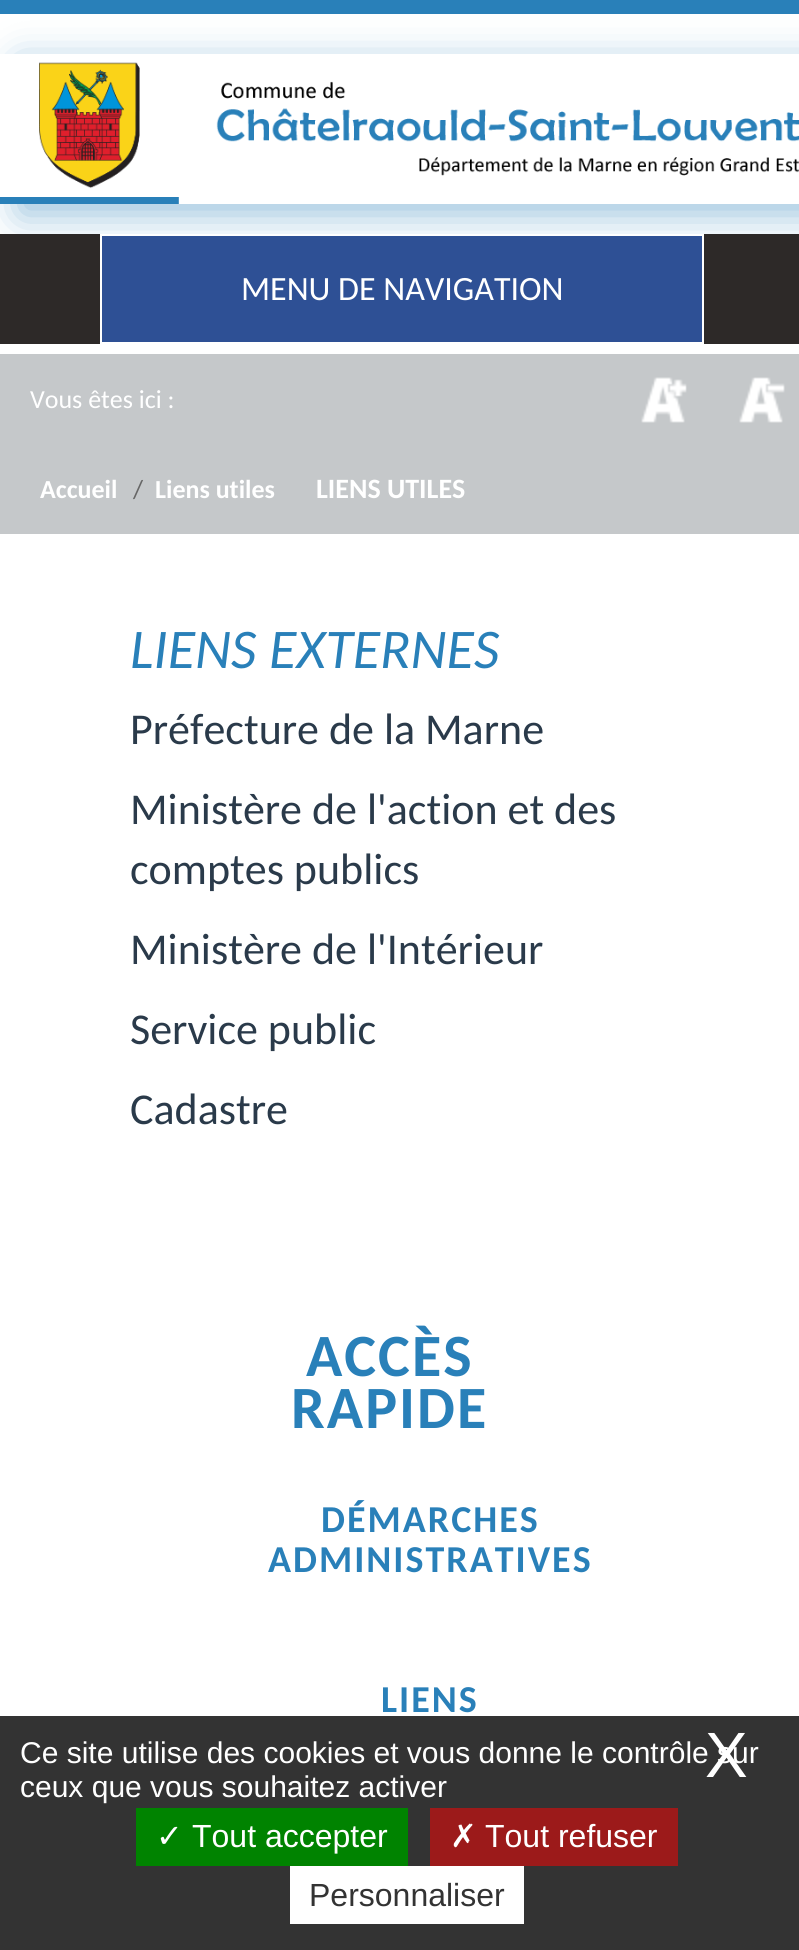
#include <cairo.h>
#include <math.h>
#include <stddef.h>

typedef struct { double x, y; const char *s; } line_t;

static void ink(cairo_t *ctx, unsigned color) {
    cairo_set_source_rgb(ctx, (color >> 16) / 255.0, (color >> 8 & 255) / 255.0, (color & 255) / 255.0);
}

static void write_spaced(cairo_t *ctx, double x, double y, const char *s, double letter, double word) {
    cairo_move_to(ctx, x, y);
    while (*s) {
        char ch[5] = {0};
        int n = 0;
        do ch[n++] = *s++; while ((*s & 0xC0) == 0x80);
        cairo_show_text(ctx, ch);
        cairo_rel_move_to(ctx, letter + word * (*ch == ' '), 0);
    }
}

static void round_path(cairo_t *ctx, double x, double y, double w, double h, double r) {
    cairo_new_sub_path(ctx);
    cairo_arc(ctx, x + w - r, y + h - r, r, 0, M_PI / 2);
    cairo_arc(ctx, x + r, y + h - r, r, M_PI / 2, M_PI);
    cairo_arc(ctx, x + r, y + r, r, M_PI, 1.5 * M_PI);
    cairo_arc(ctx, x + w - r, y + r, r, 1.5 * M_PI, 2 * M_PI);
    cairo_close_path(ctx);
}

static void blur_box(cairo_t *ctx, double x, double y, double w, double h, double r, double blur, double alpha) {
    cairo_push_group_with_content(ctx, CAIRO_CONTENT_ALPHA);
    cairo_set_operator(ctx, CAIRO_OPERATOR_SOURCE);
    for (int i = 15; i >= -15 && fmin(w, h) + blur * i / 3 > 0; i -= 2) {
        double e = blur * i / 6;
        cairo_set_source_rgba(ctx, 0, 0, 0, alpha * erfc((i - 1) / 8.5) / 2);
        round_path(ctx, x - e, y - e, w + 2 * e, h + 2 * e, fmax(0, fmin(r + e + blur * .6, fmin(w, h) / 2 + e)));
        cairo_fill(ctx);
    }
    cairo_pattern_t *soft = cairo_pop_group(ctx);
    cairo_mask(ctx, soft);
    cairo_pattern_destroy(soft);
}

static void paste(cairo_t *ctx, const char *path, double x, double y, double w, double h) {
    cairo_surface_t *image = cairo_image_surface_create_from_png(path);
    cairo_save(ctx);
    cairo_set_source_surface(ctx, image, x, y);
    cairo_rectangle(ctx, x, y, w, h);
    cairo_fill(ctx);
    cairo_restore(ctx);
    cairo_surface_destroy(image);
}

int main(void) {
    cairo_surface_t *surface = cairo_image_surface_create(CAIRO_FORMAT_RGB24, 799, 1950);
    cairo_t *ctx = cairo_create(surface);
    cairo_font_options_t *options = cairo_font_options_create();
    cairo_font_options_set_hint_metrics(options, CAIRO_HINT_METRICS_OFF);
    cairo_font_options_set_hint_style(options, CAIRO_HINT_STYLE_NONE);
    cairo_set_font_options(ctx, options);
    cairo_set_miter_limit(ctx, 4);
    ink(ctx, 0xFFFFFF);
    cairo_paint(ctx);
    ink(ctx, 0x2980B9);
    cairo_rectangle(ctx, 0, 0, 799, 14);
    cairo_fill(ctx);
    cairo_save(ctx);
    cairo_set_fill_rule(ctx, CAIRO_FILL_RULE_EVEN_ODD);
    cairo_new_path(ctx);
    cairo_move_to(ctx, 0, 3);
    cairo_line_to(ctx, 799, 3);
    cairo_line_to(ctx, 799, 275);
    cairo_line_to(ctx, 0, 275);
    cairo_close_path(ctx);
    cairo_move_to(ctx, 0, 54);
    cairo_line_to(ctx, 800, 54);
    cairo_line_to(ctx, 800, 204);
    cairo_line_to(ctx, 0, 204);
    cairo_close_path(ctx);
    cairo_clip(ctx);
    ink(ctx, 0x2980B9);
    blur_box(ctx, 20, 64, 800, 150, 0, 20, 0.5);
    cairo_restore(ctx);
    paste(ctx, "media/1.png", 0, 62, 799, 142);
    ink(ctx, 0x2D2928);
    cairo_rectangle(ctx, 0, 234, 799, 110);
    cairo_fill(ctx);
    ink(ctx, 0x2E5095);
    cairo_rectangle(ctx, 101, 235, 602, 108);
    cairo_fill_preserve(ctx);
    ink(ctx, 0xFFFFFF);
    cairo_stroke(ctx);
    cairo_select_font_face(ctx, "Carlito", CAIRO_FONT_SLANT_NORMAL, CAIRO_FONT_WEIGHT_NORMAL);
    cairo_set_font_size(ctx, 34);
    cairo_move_to(ctx, 241, 300);
    cairo_show_text(ctx, "MENU DE NAVIGATION");
    ink(ctx, 0xC5C8CA);
    cairo_rectangle(ctx, 0, 354, 799, 180);
    cairo_fill(ctx);
    cairo_set_font_size(ctx, 26);
    ink(ctx, 0xFFFFFF);
    cairo_move_to(ctx, 30, 408);
    cairo_show_text(ctx, "Vous êtes ici :");
    paste(ctx, "media/2.png", 641, 377, 46, 46);
    paste(ctx, "media/3.png", 739, 377, 46, 46);
    cairo_select_font_face(ctx, "Carlito", CAIRO_FONT_SLANT_NORMAL, CAIRO_FONT_WEIGHT_BOLD);
    cairo_move_to(ctx, 40, 498);
    cairo_show_text(ctx, "Accueil");
    cairo_select_font_face(ctx, "Carlito", CAIRO_FONT_SLANT_NORMAL, CAIRO_FONT_WEIGHT_NORMAL);
    ink(ctx, 0x666666);
    cairo_move_to(ctx, 133, 498);
    cairo_show_text(ctx, "/");
    cairo_select_font_face(ctx, "Carlito", CAIRO_FONT_SLANT_NORMAL, CAIRO_FONT_WEIGHT_BOLD);
    ink(ctx, 0xFFFFFF);
    cairo_move_to(ctx, 155, 498);
    cairo_show_text(ctx, "Liens utiles");
    cairo_set_font_size(ctx, 28);
    cairo_move_to(ctx, 316, 498);
    cairo_show_text(ctx, "LIENS UTILES");
    cairo_select_font_face(ctx, "Carlito", CAIRO_FONT_SLANT_ITALIC, CAIRO_FONT_WEIGHT_NORMAL);
    cairo_set_font_size(ctx, 56);
    ink(ctx, 0x2980B9);
    cairo_move_to(ctx, 130, 668);
    cairo_show_text(ctx, "LIENS EXTERNES");
    cairo_select_font_face(ctx, "Carlito", CAIRO_FONT_SLANT_NORMAL, CAIRO_FONT_WEIGHT_NORMAL);
    cairo_set_font_size(ctx, 44);
    ink(ctx, 0x2A3A4A);
    {
        static const line_t items[] = {
            {130, 744, "Préfecture de la Marne"},
            {130, 824, "Ministère de l'action et des"},
            {130, 884, "comptes publics"},
            {130, 964, "Ministère de l'Intérieur"},
            {130, 1044, "Service public"},
            {130, 1124, "Cadastre"},
        };
        for (size_t i = 0; i < sizeof items / sizeof *items; i++) {
            cairo_move_to(ctx, items[i].x, items[i].y);
            cairo_show_text(ctx, items[i].s);
        }
    }
    cairo_select_font_face(ctx, "Carlito", CAIRO_FONT_SLANT_NORMAL, CAIRO_FONT_WEIGHT_BOLD);
    cairo_set_font_size(ctx, 60);
    ink(ctx, 0x2980B9);
    write_spaced(ctx, 306, 1376, "ACCÈS", 2, 0);
    write_spaced(ctx, 291, 1428, "RAPIDE", 2, 0);
    cairo_set_font_size(ctx, 38);
    {
        static const line_t items[] = {
            {321, 1532, "DÉMARCHES"},
            {268, 1572, "ADMINISTRATIVES"},
            {381, 1712, "LIENS"},
        };
        for (size_t i = 0; i < sizeof items / sizeof *items; i++) {
            write_spaced(ctx, items[i].x, items[i].y, items[i].s, 2, 0);
        }
    }
    ink(ctx, 0x333333);
    cairo_rectangle(ctx, 0, 1716, 799, 234);
    cairo_fill(ctx);
    cairo_select_font_face(ctx, "Liberation Sans", CAIRO_FONT_SLANT_NORMAL, CAIRO_FONT_WEIGHT_NORMAL);
    cairo_set_font_size(ctx, 30);
    ink(ctx, 0xFFFFFF);
    cairo_move_to(ctx, 20, 1763);
    cairo_show_text(ctx, "Ce site utilise des cookies et vous donne le contrôle sur");
    cairo_set_font_size(ctx, 64);
    cairo_move_to(ctx, 705, 1777);
    cairo_show_text(ctx, "X");
    cairo_set_font_size(ctx, 30);
    cairo_move_to(ctx, 20, 1797);
    cairo_show_text(ctx, "ceux que vous souhaitez activer");
    ink(ctx, 0x008300);
    cairo_rectangle(ctx, 136, 1808, 272, 58);
    cairo_fill(ctx);
    cairo_select_font_face(ctx, "DejaVu Sans", CAIRO_FONT_SLANT_NORMAL, CAIRO_FONT_WEIGHT_NORMAL);
    cairo_set_font_size(ctx, 32);
    ink(ctx, 0xFFFFFF);
    cairo_move_to(ctx, 156, 1847);
    cairo_show_text(ctx, "✓");
    cairo_select_font_face(ctx, "Liberation Sans", CAIRO_FONT_SLANT_NORMAL, CAIRO_FONT_WEIGHT_NORMAL);
    cairo_move_to(ctx, 192, 1847);
    cairo_show_text(ctx, "Tout accepter");
    ink(ctx, 0x9C1A1A);
    cairo_rectangle(ctx, 430, 1808, 248, 58);
    cairo_fill(ctx);
    cairo_select_font_face(ctx, "DejaVu Sans", CAIRO_FONT_SLANT_NORMAL, CAIRO_FONT_WEIGHT_NORMAL);
    ink(ctx, 0xFFFFFF);
    cairo_move_to(ctx, 450, 1847);
    cairo_show_text(ctx, "✗");
    cairo_select_font_face(ctx, "Liberation Sans", CAIRO_FONT_SLANT_NORMAL, CAIRO_FONT_WEIGHT_NORMAL);
    cairo_move_to(ctx, 485, 1847);
    cairo_show_text(ctx, "Tout refuser");
    cairo_rectangle(ctx, 290, 1866, 234, 58);
    cairo_fill(ctx);
    ink(ctx, 0x333333);
    cairo_move_to(ctx, 309, 1906);
    cairo_show_text(ctx, "Personnaliser");
    cairo_surface_write_to_png(surface, "image.png");
    cairo_font_options_destroy(options);
    cairo_destroy(ctx);
    cairo_surface_destroy(surface);
    return 0;
}
